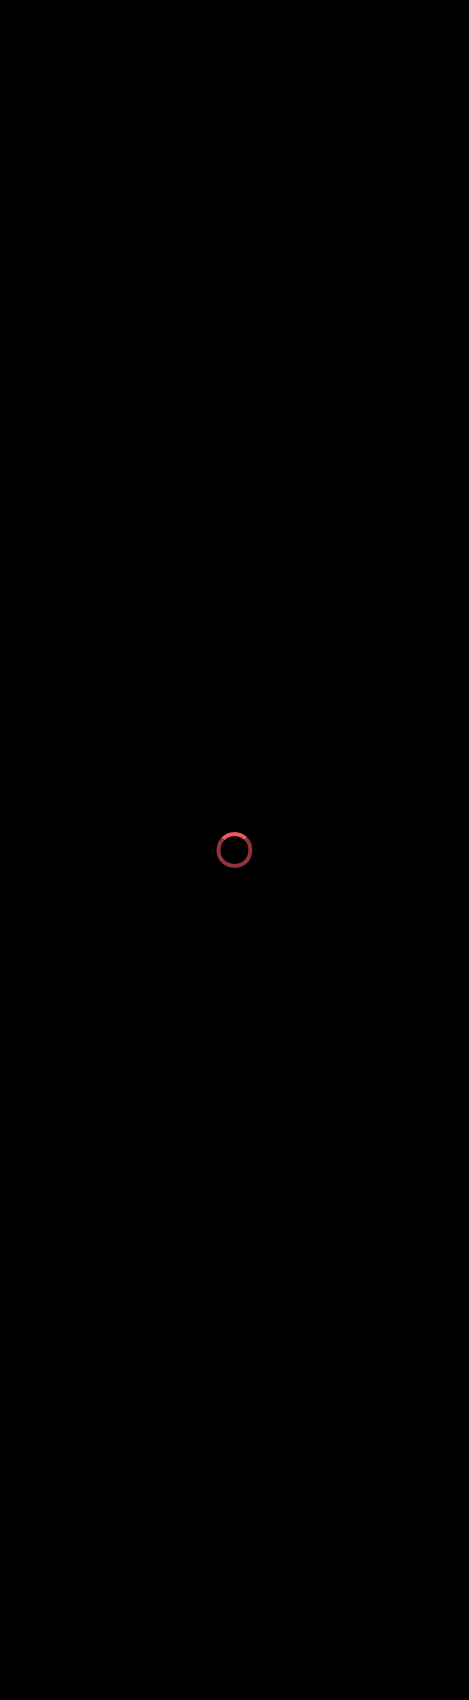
#include <cairo.h>
#include <math.h>
#include <stddef.h>


static void ink(cairo_t *ctx, unsigned color) {
    cairo_set_source_rgb(ctx, (color >> 16) / 255.0, (color >> 8 & 255) / 255.0, (color & 255) / 255.0);
}

int main(void) {
    cairo_surface_t *surface = cairo_image_surface_create(CAIRO_FORMAT_RGB24, 469, 1700);
    cairo_t *ctx = cairo_create(surface);
    cairo_font_options_t *options = cairo_font_options_create();
    cairo_font_options_set_hint_metrics(options, CAIRO_HINT_METRICS_OFF);
    cairo_font_options_set_hint_style(options, CAIRO_HINT_STYLE_NONE);
    cairo_set_font_options(ctx, options);
    cairo_set_miter_limit(ctx, 4);
    ink(ctx, 0x000000);
    cairo_paint(ctx);
    cairo_new_path(ctx);
    cairo_move_to(ctx, 223, 839);
    cairo_curve_to(ctx, 229, 832.5, 239.5, 832.5, 245.5, 838.5);
    ink(ctx, 0xEF5763);
    cairo_set_line_width(ctx, 4);
    cairo_stroke(ctx);
    cairo_new_path(ctx);
    cairo_move_to(ctx, 245.5, 838.5);
    cairo_curve_to(ctx, 249.5, 842, 251, 847.5, 250, 853);
    cairo_curve_to(ctx, 247, 871.5, 219, 869.5, 218.5, 850.5);
    cairo_curve_to(ctx, 218.5, 846, 220, 842, 223, 839);
    cairo_set_source_rgba(ctx, 0.937, 0.341, 0.388, 0.6);
    cairo_stroke(ctx);
    cairo_surface_write_to_png(surface, "image.png");
    cairo_font_options_destroy(options);
    cairo_destroy(ctx);
    cairo_surface_destroy(surface);
    return 0;
}
